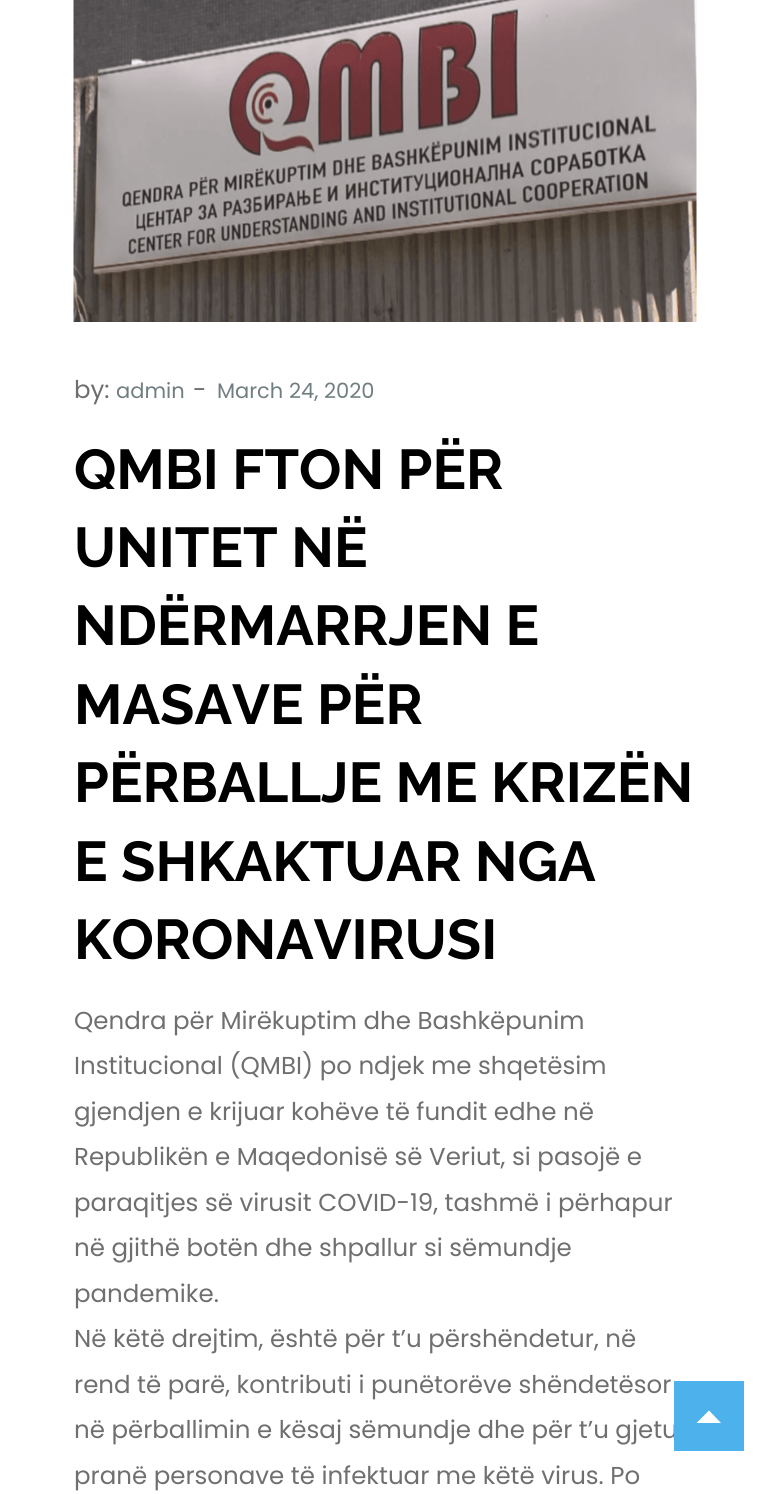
#include <cairo.h>
#include <math.h>
#include <stddef.h>

typedef struct { double x, y; const char *s; } line_t;

static void ink(cairo_t *ctx, unsigned color) {
    cairo_set_source_rgb(ctx, (color >> 16) / 255.0, (color >> 8 & 255) / 255.0, (color & 255) / 255.0);
}

static void paste(cairo_t *ctx, const char *path, double x, double y, double w, double h) {
    cairo_surface_t *image = cairo_image_surface_create_from_png(path);
    cairo_save(ctx);
    cairo_set_source_surface(ctx, image, x, y);
    cairo_rectangle(ctx, x, y, w, h);
    cairo_fill(ctx);
    cairo_restore(ctx);
    cairo_surface_destroy(image);
}

int main(void) {
    cairo_surface_t *surface = cairo_image_surface_create(CAIRO_FORMAT_RGB24, 769, 1494);
    cairo_t *ctx = cairo_create(surface);
    cairo_font_options_t *options = cairo_font_options_create();
    cairo_font_options_set_hint_metrics(options, CAIRO_HINT_METRICS_OFF);
    cairo_font_options_set_hint_style(options, CAIRO_HINT_STYLE_NONE);
    cairo_set_font_options(ctx, options);
    cairo_set_miter_limit(ctx, 4);
    ink(ctx, 0xFFFFFF);
    cairo_paint(ctx);
    paste(ctx, "media/1.png", 73, 0, 624, 322);
    cairo_select_font_face(ctx, "Poppins", CAIRO_FONT_SLANT_NORMAL, CAIRO_FONT_WEIGHT_NORMAL);
    cairo_set_font_size(ctx, 24.5);
    ink(ctx, 0x6F6F6F);
    cairo_move_to(ctx, 74, 398);
    cairo_show_text(ctx, "by:");
    cairo_set_font_size(ctx, 21);
    ink(ctx, 0x717E81);
    cairo_move_to(ctx, 116, 398);
    cairo_show_text(ctx, "admin");
    cairo_set_font_size(ctx, 24.5);
    ink(ctx, 0x6F6F6F);
    cairo_move_to(ctx, 193, 398);
    cairo_show_text(ctx, "-");
    cairo_set_font_size(ctx, 21);
    ink(ctx, 0x717E81);
    cairo_move_to(ctx, 217, 398);
    cairo_show_text(ctx, "March 24, 2020");
    cairo_select_font_face(ctx, "Raleway", CAIRO_FONT_SLANT_NORMAL, CAIRO_FONT_WEIGHT_BOLD);
    cairo_set_font_size(ctx, 56);
    ink(ctx, 0x000000);
    {
        static const line_t items[] = {
            {74, 489, "QMBI FTON PËR"},
            {74, 567, "UNITET NË"},
            {74, 645, "NDËRMARRJEN E"},
            {74, 724, "MASAVE PËR"},
            {74, 802, "PËRBALLJE ME KRIZËN"},
            {74, 881, "E SHKAKTUAR NGA"},
            {74, 959, "KORONAVIRUSI"},
        };
        for (size_t i = 0; i < sizeof items / sizeof *items; i++) {
            cairo_move_to(ctx, items[i].x, items[i].y);
            cairo_show_text(ctx, items[i].s);
        }
    }
    cairo_select_font_face(ctx, "Poppins", CAIRO_FONT_SLANT_NORMAL, CAIRO_FONT_WEIGHT_NORMAL);
    cairo_set_font_size(ctx, 24.5);
    ink(ctx, 0x6F6F6F);
    {
        static const line_t items[] = {
            {74, 1029, "Qendra për Mirëkuptim dhe Bashkëpunim"},
            {74, 1074, "Institucional (QMBI) po ndjek me shqetësim"},
            {74, 1120, "gjendjen e krijuar kohëve të fundit edhe në"},
            {74, 1165, "Republikën e Maqedonisë së Veriut, si pasojë e"},
            {74, 1211, "paraqitjes së virusit COVID-19, tashmë i përhapur"},
            {74, 1256, "në gjithë botën dhe shpallur si sëmundje"},
            {74, 1302, "pandemike."},
            {74, 1347, "Në këtë drejtim, është për t’u përshëndetur, në"},
            {74, 1393, "rend të parë, kontributi i punëtorëve shëndetësor"},
            {74, 1438, "në përballimin e kësaj sëmundje dhe për t’u gjetu"},
            {74, 1484, "pranë personave të infektuar me këtë virus. Po"},
        };
        for (size_t i = 0; i < sizeof items / sizeof *items; i++) {
            cairo_move_to(ctx, items[i].x, items[i].y);
            cairo_show_text(ctx, items[i].s);
        }
    }
    ink(ctx, 0x4DB2EC);
    cairo_rectangle(ctx, 674, 1381, 70, 70);
    cairo_fill(ctx);
    ink(ctx, 0xFFFFFF);
    cairo_new_path(ctx);
    cairo_move_to(ctx, 721, 1423);
    cairo_line_to(ctx, 696.5, 1423);
    cairo_line_to(ctx, 709, 1410.5);
    cairo_close_path(ctx);
    cairo_fill(ctx);
    cairo_surface_write_to_png(surface, "image.png");
    cairo_font_options_destroy(options);
    cairo_destroy(ctx);
    cairo_surface_destroy(surface);
    return 0;
}
